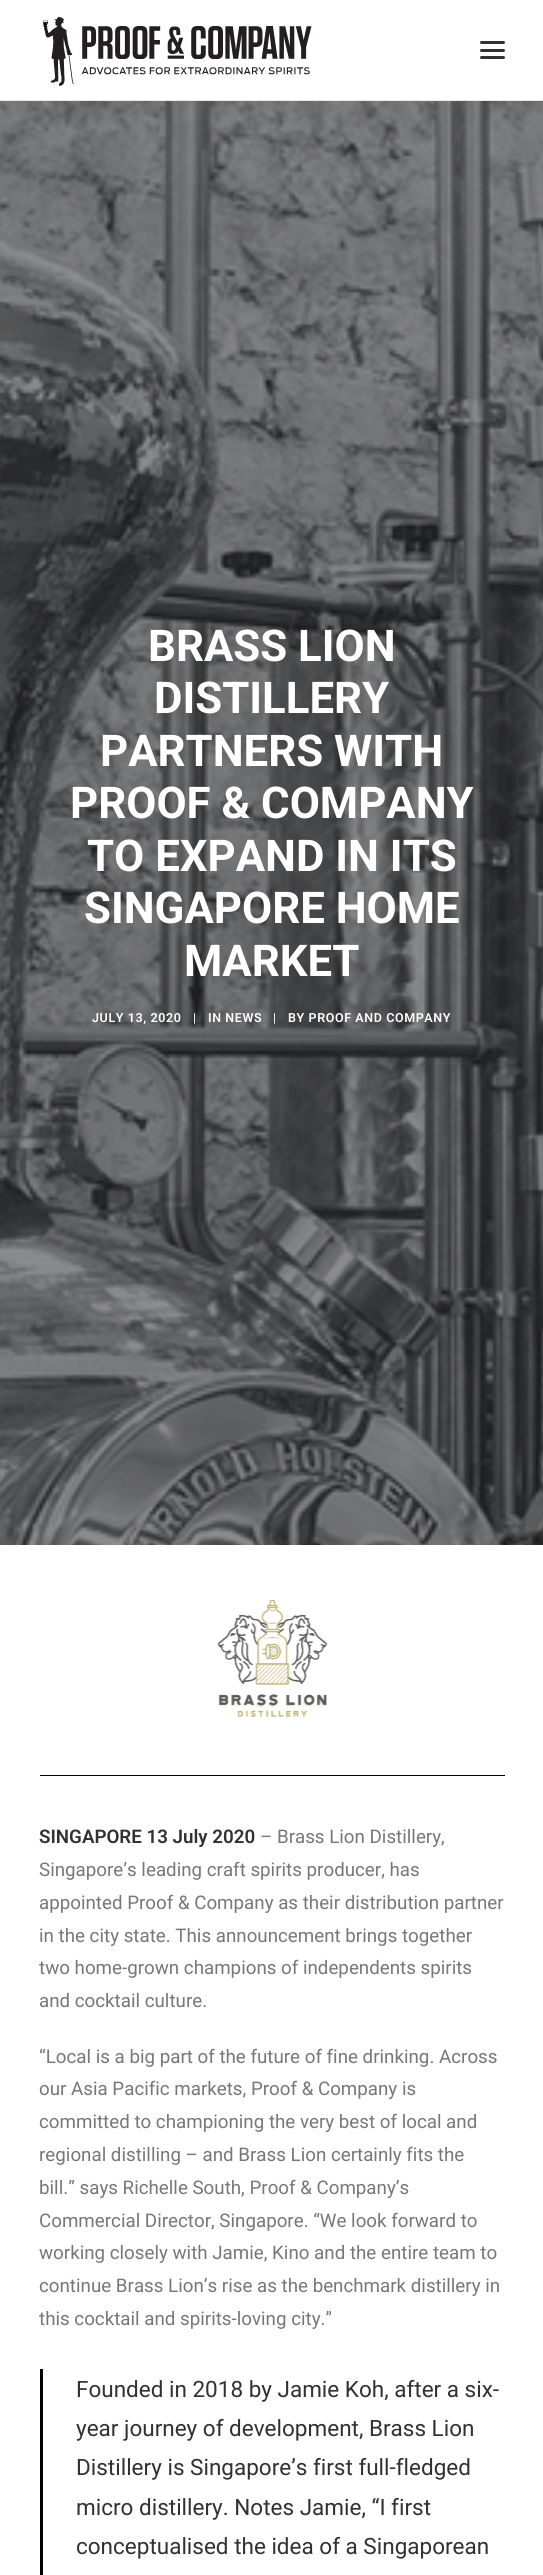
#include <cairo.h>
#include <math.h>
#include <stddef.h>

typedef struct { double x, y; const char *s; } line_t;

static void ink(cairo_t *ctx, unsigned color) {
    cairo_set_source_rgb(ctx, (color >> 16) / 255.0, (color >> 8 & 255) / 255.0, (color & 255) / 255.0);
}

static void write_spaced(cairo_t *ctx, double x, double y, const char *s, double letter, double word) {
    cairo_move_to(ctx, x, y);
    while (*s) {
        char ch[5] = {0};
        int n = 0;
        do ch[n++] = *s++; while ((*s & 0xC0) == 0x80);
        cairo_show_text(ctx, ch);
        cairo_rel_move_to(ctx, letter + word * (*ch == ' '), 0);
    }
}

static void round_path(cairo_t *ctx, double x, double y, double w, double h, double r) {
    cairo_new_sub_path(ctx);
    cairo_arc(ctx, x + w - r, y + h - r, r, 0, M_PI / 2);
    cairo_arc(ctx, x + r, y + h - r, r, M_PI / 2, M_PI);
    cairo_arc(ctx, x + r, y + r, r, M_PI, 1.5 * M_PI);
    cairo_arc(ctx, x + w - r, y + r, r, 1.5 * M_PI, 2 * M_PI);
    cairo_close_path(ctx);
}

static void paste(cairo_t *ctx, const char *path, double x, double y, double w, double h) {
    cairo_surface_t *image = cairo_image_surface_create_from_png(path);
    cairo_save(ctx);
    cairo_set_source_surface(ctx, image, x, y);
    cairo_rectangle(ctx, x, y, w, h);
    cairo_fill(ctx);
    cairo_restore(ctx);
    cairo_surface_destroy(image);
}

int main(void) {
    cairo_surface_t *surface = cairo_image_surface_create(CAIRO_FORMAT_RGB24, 543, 2575);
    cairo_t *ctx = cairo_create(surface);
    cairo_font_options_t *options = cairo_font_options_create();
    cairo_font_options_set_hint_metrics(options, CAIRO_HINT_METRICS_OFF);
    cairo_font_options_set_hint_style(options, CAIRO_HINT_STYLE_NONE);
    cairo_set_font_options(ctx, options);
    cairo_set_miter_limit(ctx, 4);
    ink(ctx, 0xFFFFFF);
    cairo_paint(ctx);
    ink(ctx, 0xEAEAEA);
    cairo_rectangle(ctx, 0, 100, 543, 1);
    cairo_fill(ctx);
    paste(ctx, "media/1.png", 43, 17, 269, 69);
    ink(ctx, 0x303133);
    round_path(ctx, 480, 49, 25, 3, 1.5);
    cairo_fill(ctx);
    round_path(ctx, 480, 41, 25, 3, 1.5);
    cairo_fill(ctx);
    round_path(ctx, 480, 56, 25, 3, 1.5);
    cairo_fill(ctx);
    paste(ctx, "media/2.png", 0, 101, 543, 1444);
    cairo_select_font_face(ctx, "Roboto", CAIRO_FONT_SLANT_NORMAL, CAIRO_FONT_WEIGHT_BOLD);
    cairo_set_font_size(ctx, 43.75);
    ink(ctx, 0xFFFFFF);
    {
        static const line_t items[] = {
            {148, 661, "BRASS LION"},
            {154, 713, "DISTILLERY"},
            {100, 766, "PARTNERS WITH"},
            {70, 818, "PROOF & COMPANY"},
            {87, 871, "TO EXPAND IN ITS"},
            {84, 923, "SINGAPORE HOME"},
            {184, 976, "MARKET"},
        };
        for (size_t i = 0; i < sizeof items / sizeof *items; i++) {
            cairo_move_to(ctx, items[i].x, items[i].y);
            cairo_show_text(ctx, items[i].s);
        }
    }
    cairo_select_font_face(ctx, "Roboto SemiBold", CAIRO_FONT_SLANT_NORMAL, CAIRO_FONT_WEIGHT_NORMAL);
    cairo_set_font_size(ctx, 12.5);
    write_spaced(ctx, 92, 1022, "JULY 13, 2020", 0.6, 0);
    cairo_select_font_face(ctx, "Roboto", CAIRO_FONT_SLANT_NORMAL, CAIRO_FONT_WEIGHT_NORMAL);
    write_spaced(ctx, 193, 1022, "|", 0.6, 0);
    cairo_select_font_face(ctx, "Roboto SemiBold", CAIRO_FONT_SLANT_NORMAL, CAIRO_FONT_WEIGHT_NORMAL);
    write_spaced(ctx, 208, 1022, "IN NEWS", 0.6, 0);
    cairo_select_font_face(ctx, "Roboto", CAIRO_FONT_SLANT_NORMAL, CAIRO_FONT_WEIGHT_NORMAL);
    write_spaced(ctx, 273, 1022, "|", 0.6, 0);
    cairo_select_font_face(ctx, "Roboto SemiBold", CAIRO_FONT_SLANT_NORMAL, CAIRO_FONT_WEIGHT_NORMAL);
    write_spaced(ctx, 288, 1022, "BY PROOF AND COMPANY", 0.6, 0);
    paste(ctx, "media/3.png", 217, 1599, 111, 118);
    ink(ctx, 0x000000);
    cairo_rectangle(ctx, 40, 1775, 465, 1);
    cairo_fill(ctx);
    cairo_set_font_size(ctx, 18.75);
    ink(ctx, 0x303133);
    cairo_move_to(ctx, 39, 1843);
    cairo_show_text(ctx, "SINGAPORE 13 July 2020");
    cairo_select_font_face(ctx, "Roboto", CAIRO_FONT_SLANT_NORMAL, CAIRO_FONT_WEIGHT_NORMAL);
    ink(ctx, 0x777777);
    {
        static const line_t items[] = {
            {260, 1843, "– Brass Lion Distillery,"},
            {39, 1876, "Singapore’s leading craft spirits producer, has"},
            {39, 1909, "appointed Proof & Company as their distribution partner"},
            {39, 1942, "in the city state. This announcement brings together"},
            {39, 1974, "two home-grown champions of independents spirits"},
            {39, 2007, "and cocktail culture."},
            {39, 2063, "“Local is a big part of the future of fine drinking. Across"},
            {39, 2095, "our Asia Pacific markets, Proof & Company is"},
            {39, 2128, "committed to championing the very best of local and"},
            {39, 2161, "regional distilling – and Brass Lion certainly fits the"},
            {39, 2194, "bill.” says Richelle South, Proof & Company’s"},
            {39, 2227, "Commercial Director, Singapore. “We look forward to"},
            {39, 2259, "working closely with Jamie, Kino and the entire team to"},
            {39, 2292, "continue Brass Lion’s rise as the benchmark distillery in"},
            {39, 2325, "this cocktail and spirits-loving city.”"},
        };
        for (size_t i = 0; i < sizeof items / sizeof *items; i++) {
            cairo_move_to(ctx, items[i].x, items[i].y);
            cairo_show_text(ctx, items[i].s);
        }
    }
    ink(ctx, 0x000000);
    cairo_rectangle(ctx, 40, 2369, 3, 206);
    cairo_fill(ctx);
    cairo_set_font_size(ctx, 22.5);
    ink(ctx, 0x303133);
    {
        static const line_t items[] = {
            {76, 2397, "Founded in 2018 by Jamie Koh, after a six-"},
            {76, 2436, "year journey of development, Brass Lion"},
            {76, 2475, "Distillery is Singapore’s first full-fledged"},
            {76, 2515, "micro distillery. Notes Jamie, “I first"},
            {76, 2554, "conceptualised the idea of a Singaporean"},
        };
        for (size_t i = 0; i < sizeof items / sizeof *items; i++) {
            cairo_move_to(ctx, items[i].x, items[i].y);
            cairo_show_text(ctx, items[i].s);
        }
    }
    cairo_surface_write_to_png(surface, "image.png");
    cairo_font_options_destroy(options);
    cairo_destroy(ctx);
    cairo_surface_destroy(surface);
    return 0;
}
